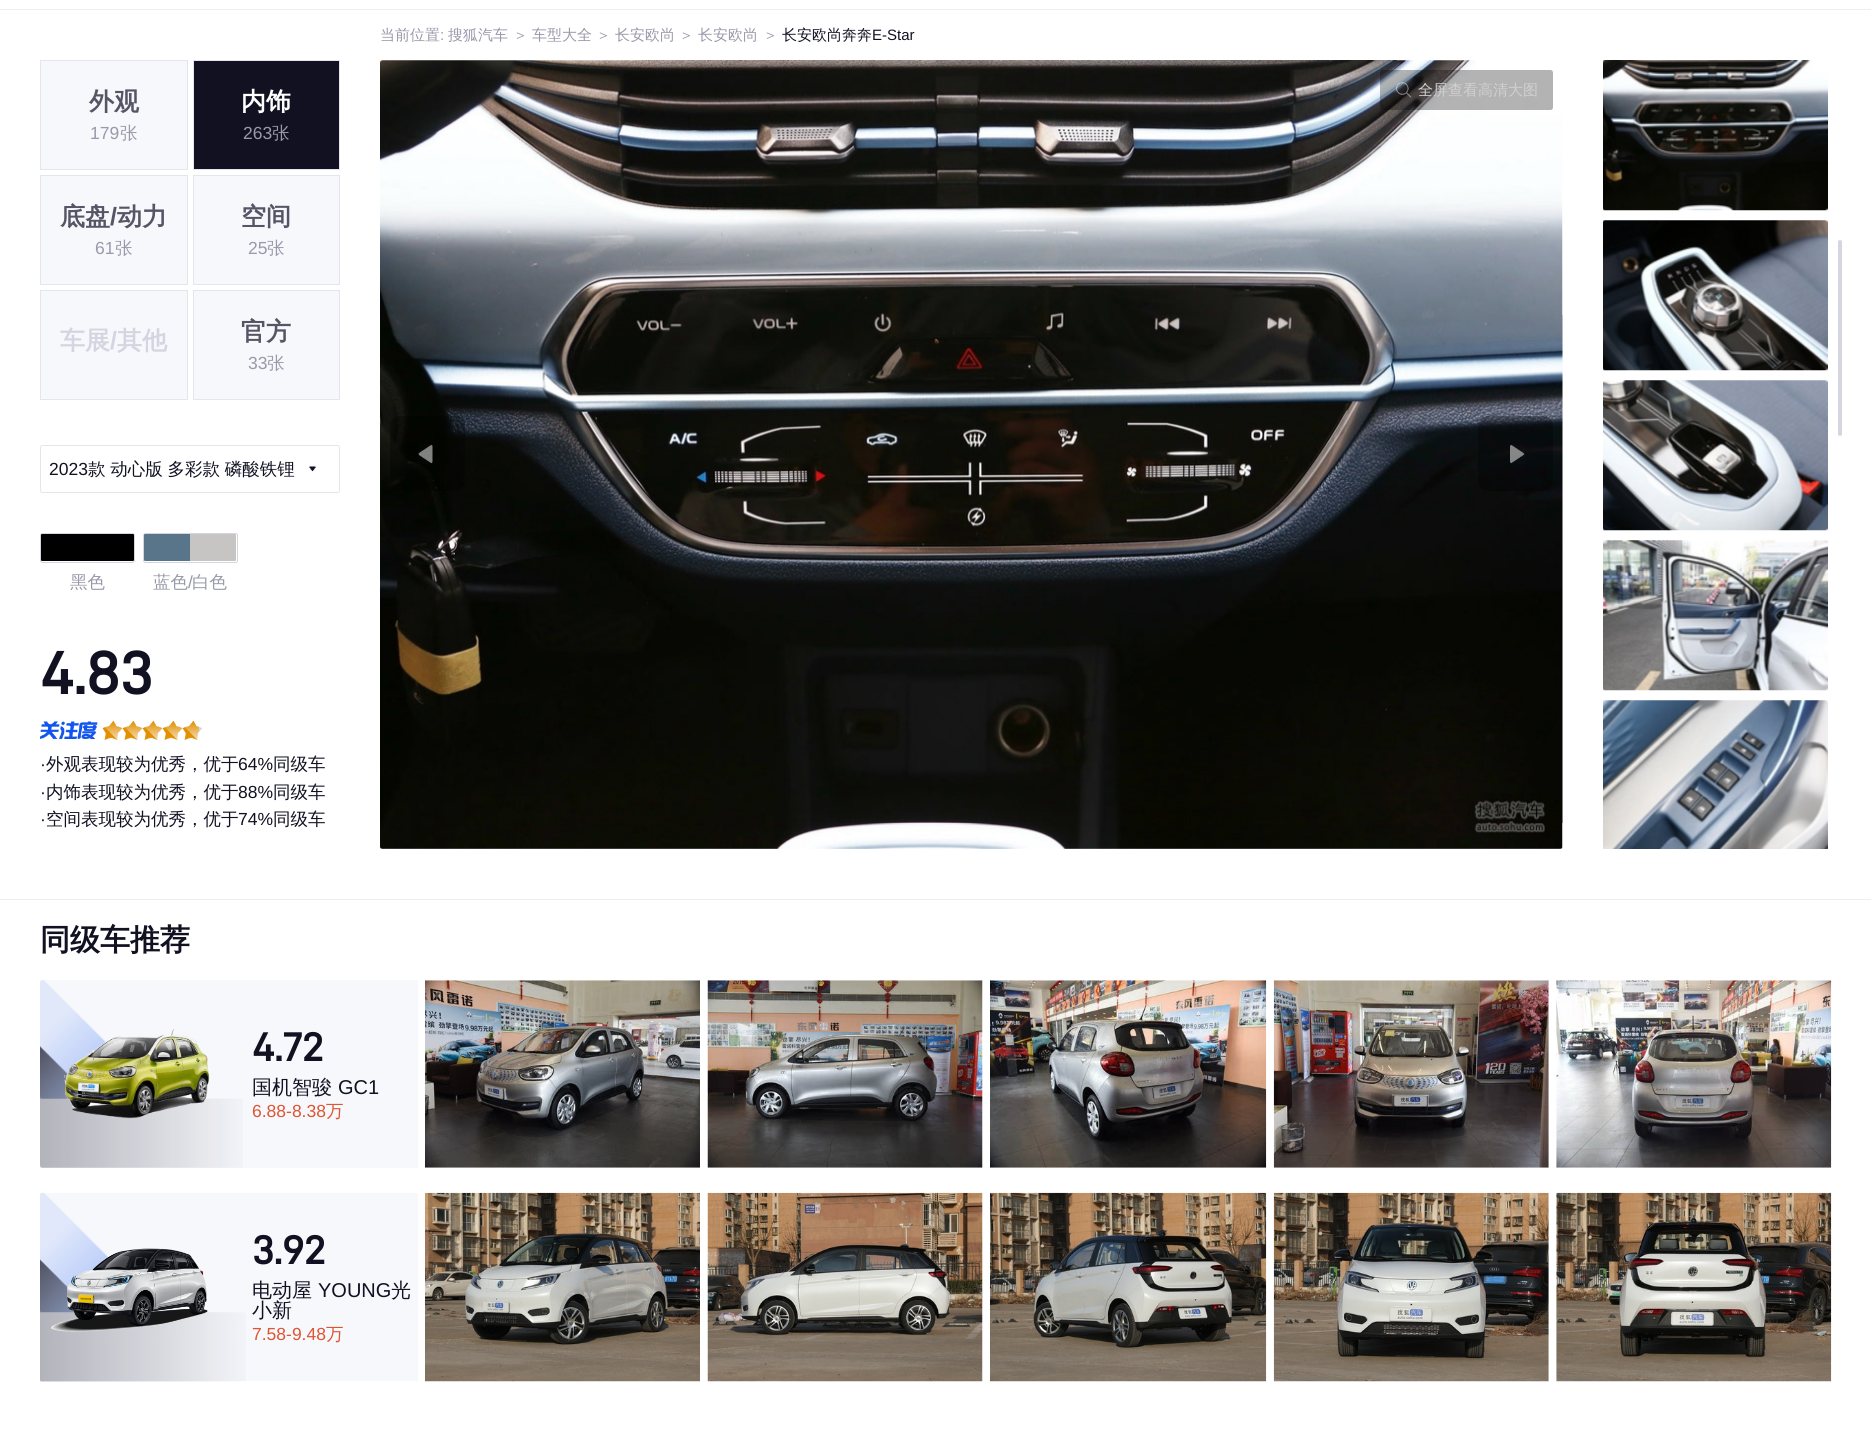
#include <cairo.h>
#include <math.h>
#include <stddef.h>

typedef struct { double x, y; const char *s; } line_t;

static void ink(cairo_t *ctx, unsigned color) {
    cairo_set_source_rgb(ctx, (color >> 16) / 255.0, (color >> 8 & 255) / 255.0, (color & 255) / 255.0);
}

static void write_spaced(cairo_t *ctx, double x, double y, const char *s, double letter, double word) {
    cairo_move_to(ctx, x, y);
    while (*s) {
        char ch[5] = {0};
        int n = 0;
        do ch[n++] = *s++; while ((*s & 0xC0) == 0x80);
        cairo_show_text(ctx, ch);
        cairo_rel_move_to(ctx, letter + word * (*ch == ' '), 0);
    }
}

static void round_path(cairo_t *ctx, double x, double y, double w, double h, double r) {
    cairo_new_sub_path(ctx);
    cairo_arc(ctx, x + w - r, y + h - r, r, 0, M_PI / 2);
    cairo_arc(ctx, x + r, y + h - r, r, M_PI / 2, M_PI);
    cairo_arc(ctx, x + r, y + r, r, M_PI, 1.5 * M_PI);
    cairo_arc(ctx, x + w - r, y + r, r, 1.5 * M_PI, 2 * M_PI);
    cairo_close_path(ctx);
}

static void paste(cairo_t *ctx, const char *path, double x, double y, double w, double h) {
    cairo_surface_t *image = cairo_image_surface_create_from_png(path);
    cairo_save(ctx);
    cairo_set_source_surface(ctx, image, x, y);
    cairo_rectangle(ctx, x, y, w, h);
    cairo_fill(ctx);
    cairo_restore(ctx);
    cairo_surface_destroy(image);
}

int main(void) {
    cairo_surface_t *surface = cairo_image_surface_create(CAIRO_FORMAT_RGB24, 1871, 1429);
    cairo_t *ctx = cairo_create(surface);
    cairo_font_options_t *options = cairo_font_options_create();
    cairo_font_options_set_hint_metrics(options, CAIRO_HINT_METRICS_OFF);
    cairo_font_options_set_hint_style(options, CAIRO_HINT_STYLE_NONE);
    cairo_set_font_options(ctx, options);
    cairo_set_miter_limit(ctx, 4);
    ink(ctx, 0xFFFFFF);
    cairo_paint(ctx);
    ink(ctx, 0xEEEEF0);
    cairo_rectangle(ctx, 0, 9, 1871, 1);
    cairo_fill(ctx);
    cairo_select_font_face(ctx, "WenQuanYi Zen Hei Medium", CAIRO_FONT_SLANT_NORMAL, CAIRO_FONT_WEIGHT_NORMAL);
    cairo_set_font_size(ctx, 15);
    ink(ctx, 0x9999AA);
    cairo_move_to(ctx, 380, 40);
    cairo_show_text(ctx, "当前位置");
    cairo_select_font_face(ctx, "Liberation Sans", CAIRO_FONT_SLANT_NORMAL, CAIRO_FONT_WEIGHT_NORMAL);
    cairo_move_to(ctx, 440, 40);
    cairo_show_text(ctx, ":");
    cairo_select_font_face(ctx, "WenQuanYi Zen Hei Medium", CAIRO_FONT_SLANT_NORMAL, CAIRO_FONT_WEIGHT_NORMAL);
    {
        static const line_t items[] = {
            {448, 40, "搜狐汽车"},
            {513, 40, "＞"},
            {532, 40, "车型大全"},
            {596, 40, "＞"},
            {615, 40, "长安欧尚"},
            {679, 40, "＞"},
            {698, 40, "长安欧尚"},
            {763, 40, "＞"},
        };
        for (size_t i = 0; i < sizeof items / sizeof *items; i++) {
            cairo_move_to(ctx, items[i].x, items[i].y);
            cairo_show_text(ctx, items[i].s);
        }
    }
    ink(ctx, 0x111122);
    cairo_move_to(ctx, 782, 40);
    cairo_show_text(ctx, "长安欧尚奔奔");
    cairo_select_font_face(ctx, "Liberation Sans", CAIRO_FONT_SLANT_NORMAL, CAIRO_FONT_WEIGHT_NORMAL);
    cairo_move_to(ctx, 872, 40);
    cairo_show_text(ctx, "E-Star");
    ink(ctx, 0xF7F8FC);
    cairo_rectangle(ctx, 40.5, 60.5, 147, 109);
    cairo_fill_preserve(ctx);
    ink(ctx, 0xE5E5EE);
    cairo_set_line_width(ctx, 1);
    cairo_stroke(ctx);
    cairo_select_font_face(ctx, "WenQuanYi Zen Hei", CAIRO_FONT_SLANT_NORMAL, CAIRO_FONT_WEIGHT_BOLD);
    cairo_set_font_size(ctx, 25);
    ink(ctx, 0x555566);
    cairo_move_to(ctx, 89, 110);
    cairo_show_text(ctx, "外观");
    cairo_select_font_face(ctx, "Liberation Sans", CAIRO_FONT_SLANT_NORMAL, CAIRO_FONT_WEIGHT_NORMAL);
    cairo_set_font_size(ctx, 17.5);
    ink(ctx, 0x9999AA);
    cairo_move_to(ctx, 90, 139);
    cairo_show_text(ctx, "179");
    cairo_select_font_face(ctx, "WenQuanYi Zen Hei Medium", CAIRO_FONT_SLANT_NORMAL, CAIRO_FONT_WEIGHT_NORMAL);
    cairo_move_to(ctx, 120, 139);
    cairo_show_text(ctx, "张");
    ink(ctx, 0x111122);
    cairo_rectangle(ctx, 193.5, 60.5, 146, 109);
    cairo_fill_preserve(ctx);
    ink(ctx, 0xE5E5EE);
    cairo_stroke(ctx);
    cairo_select_font_face(ctx, "WenQuanYi Zen Hei", CAIRO_FONT_SLANT_NORMAL, CAIRO_FONT_WEIGHT_BOLD);
    cairo_set_font_size(ctx, 25);
    ink(ctx, 0xFFFFFF);
    cairo_move_to(ctx, 241, 110);
    cairo_show_text(ctx, "内饰");
    cairo_select_font_face(ctx, "Liberation Sans", CAIRO_FONT_SLANT_NORMAL, CAIRO_FONT_WEIGHT_NORMAL);
    cairo_set_font_size(ctx, 17.5);
    ink(ctx, 0x9999AA);
    cairo_move_to(ctx, 243, 139);
    cairo_show_text(ctx, "263");
    cairo_select_font_face(ctx, "WenQuanYi Zen Hei Medium", CAIRO_FONT_SLANT_NORMAL, CAIRO_FONT_WEIGHT_NORMAL);
    cairo_move_to(ctx, 272, 139);
    cairo_show_text(ctx, "张");
    ink(ctx, 0xF7F8FC);
    cairo_rectangle(ctx, 40.5, 175.5, 147, 109);
    cairo_fill_preserve(ctx);
    ink(ctx, 0xE5E5EE);
    cairo_stroke(ctx);
    cairo_select_font_face(ctx, "WenQuanYi Zen Hei", CAIRO_FONT_SLANT_NORMAL, CAIRO_FONT_WEIGHT_BOLD);
    cairo_set_font_size(ctx, 25);
    ink(ctx, 0x555566);
    cairo_move_to(ctx, 60, 225);
    cairo_show_text(ctx, "底盘");
    cairo_select_font_face(ctx, "Liberation Sans", CAIRO_FONT_SLANT_NORMAL, CAIRO_FONT_WEIGHT_BOLD);
    cairo_move_to(ctx, 110, 225);
    cairo_show_text(ctx, "/");
    cairo_select_font_face(ctx, "WenQuanYi Zen Hei", CAIRO_FONT_SLANT_NORMAL, CAIRO_FONT_WEIGHT_BOLD);
    cairo_move_to(ctx, 117, 225);
    cairo_show_text(ctx, "动力");
    cairo_select_font_face(ctx, "Liberation Sans", CAIRO_FONT_SLANT_NORMAL, CAIRO_FONT_WEIGHT_NORMAL);
    cairo_set_font_size(ctx, 17.5);
    ink(ctx, 0x9999AA);
    cairo_move_to(ctx, 95, 254);
    cairo_show_text(ctx, "61");
    cairo_select_font_face(ctx, "WenQuanYi Zen Hei Medium", CAIRO_FONT_SLANT_NORMAL, CAIRO_FONT_WEIGHT_NORMAL);
    cairo_move_to(ctx, 115, 254);
    cairo_show_text(ctx, "张");
    ink(ctx, 0xF7F8FC);
    cairo_rectangle(ctx, 193.5, 175.5, 146, 109);
    cairo_fill_preserve(ctx);
    ink(ctx, 0xE5E5EE);
    cairo_stroke(ctx);
    cairo_select_font_face(ctx, "WenQuanYi Zen Hei", CAIRO_FONT_SLANT_NORMAL, CAIRO_FONT_WEIGHT_BOLD);
    cairo_set_font_size(ctx, 25);
    ink(ctx, 0x555566);
    cairo_move_to(ctx, 241, 225);
    cairo_show_text(ctx, "空间");
    cairo_select_font_face(ctx, "Liberation Sans", CAIRO_FONT_SLANT_NORMAL, CAIRO_FONT_WEIGHT_NORMAL);
    cairo_set_font_size(ctx, 17.5);
    ink(ctx, 0x9999AA);
    cairo_move_to(ctx, 248, 254);
    cairo_show_text(ctx, "25");
    cairo_select_font_face(ctx, "WenQuanYi Zen Hei Medium", CAIRO_FONT_SLANT_NORMAL, CAIRO_FONT_WEIGHT_NORMAL);
    cairo_move_to(ctx, 267, 254);
    cairo_show_text(ctx, "张");
    ink(ctx, 0xF7F8FC);
    cairo_rectangle(ctx, 40.5, 290.5, 147, 109);
    cairo_fill_preserve(ctx);
    ink(ctx, 0xE5E5EE);
    cairo_stroke(ctx);
    cairo_select_font_face(ctx, "WenQuanYi Zen Hei", CAIRO_FONT_SLANT_NORMAL, CAIRO_FONT_WEIGHT_BOLD);
    cairo_set_font_size(ctx, 25);
    ink(ctx, 0xD5D5E2);
    cairo_move_to(ctx, 60, 349);
    cairo_show_text(ctx, "车展");
    cairo_select_font_face(ctx, "Liberation Sans", CAIRO_FONT_SLANT_NORMAL, CAIRO_FONT_WEIGHT_BOLD);
    cairo_move_to(ctx, 110, 349);
    cairo_show_text(ctx, "/");
    cairo_select_font_face(ctx, "WenQuanYi Zen Hei", CAIRO_FONT_SLANT_NORMAL, CAIRO_FONT_WEIGHT_BOLD);
    cairo_move_to(ctx, 117, 349);
    cairo_show_text(ctx, "其他");
    ink(ctx, 0xF7F8FC);
    cairo_rectangle(ctx, 193.5, 290.5, 146, 109);
    cairo_fill_preserve(ctx);
    ink(ctx, 0xE5E5EE);
    cairo_stroke(ctx);
    ink(ctx, 0x555566);
    cairo_move_to(ctx, 241, 340);
    cairo_show_text(ctx, "官方");
    cairo_select_font_face(ctx, "Liberation Sans", CAIRO_FONT_SLANT_NORMAL, CAIRO_FONT_WEIGHT_NORMAL);
    cairo_set_font_size(ctx, 17.5);
    ink(ctx, 0x9999AA);
    cairo_move_to(ctx, 248, 369);
    cairo_show_text(ctx, "33");
    cairo_select_font_face(ctx, "WenQuanYi Zen Hei Medium", CAIRO_FONT_SLANT_NORMAL, CAIRO_FONT_WEIGHT_NORMAL);
    cairo_move_to(ctx, 267, 369);
    cairo_show_text(ctx, "张");
    round_path(ctx, 40.5, 445.5, 299, 47, 2);
    ink(ctx, 0xE5E5EE);
    cairo_stroke(ctx);
    cairo_select_font_face(ctx, "Liberation Sans", CAIRO_FONT_SLANT_NORMAL, CAIRO_FONT_WEIGHT_NORMAL);
    ink(ctx, 0x111122);
    cairo_move_to(ctx, 49, 475);
    cairo_show_text(ctx, "2023");
    cairo_select_font_face(ctx, "WenQuanYi Zen Hei Medium", CAIRO_FONT_SLANT_NORMAL, CAIRO_FONT_WEIGHT_NORMAL);
    write_spaced(ctx, 88, 475, "款 动心版 多彩款 磷酸铁锂", 0, -0.5);
    paste(ctx, "media/1.png", 309, 466, 7, 6);
    round_path(ctx, 40.5, 533.5, 94, 29, 2);
    ink(ctx, 0xD5D5E2);
    cairo_stroke(ctx);
    ink(ctx, 0x000000);
    round_path(ctx, 41, 534, 93, 27, 1);
    cairo_fill(ctx);
    cairo_save(ctx);
    cairo_rectangle(ctx, 70, 573, 35, 17);
    cairo_clip(ctx);
    ink(ctx, 0x9999AA);
    cairo_move_to(ctx, 70, 588);
    cairo_show_text(ctx, "黑色");
    cairo_restore(ctx);
    round_path(ctx, 143.5, 533.5, 94, 29, 2);
    ink(ctx, 0xD5D5E2);
    cairo_stroke(ctx);
    ink(ctx, 0x59758A);
    cairo_new_path(ctx);
    cairo_move_to(ctx, 145, 534);
    cairo_line_to(ctx, 190, 534);
    cairo_line_to(ctx, 190, 561);
    cairo_line_to(ctx, 145, 561);
    cairo_curve_to(ctx, 144.5, 561, 144, 560.5, 144, 560);
    cairo_line_to(ctx, 144, 535);
    cairo_curve_to(ctx, 144, 534.5, 144.5, 534, 145, 534);
    cairo_close_path(ctx);
    cairo_fill(ctx);
    ink(ctx, 0xC6C5C3);
    cairo_new_path(ctx);
    cairo_move_to(ctx, 190, 534);
    cairo_line_to(ctx, 235, 534);
    cairo_curve_to(ctx, 235.5, 534, 236, 534.5, 236, 535);
    cairo_line_to(ctx, 236, 560);
    cairo_curve_to(ctx, 236, 560.5, 235.5, 561, 235, 561);
    cairo_line_to(ctx, 190, 561);
    cairo_close_path(ctx);
    cairo_fill(ctx);
    ink(ctx, 0x9999AA);
    cairo_move_to(ctx, 153, 588);
    cairo_show_text(ctx, "蓝色");
    cairo_select_font_face(ctx, "Liberation Sans", CAIRO_FONT_SLANT_NORMAL, CAIRO_FONT_WEIGHT_NORMAL);
    cairo_move_to(ctx, 188, 588);
    cairo_show_text(ctx, "/");
    cairo_select_font_face(ctx, "WenQuanYi Zen Hei Medium", CAIRO_FONT_SLANT_NORMAL, CAIRO_FONT_WEIGHT_NORMAL);
    cairo_move_to(ctx, 192, 588);
    cairo_show_text(ctx, "白色");
    cairo_select_font_face(ctx, "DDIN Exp", CAIRO_FONT_SLANT_NORMAL, CAIRO_FONT_WEIGHT_BOLD);
    cairo_set_font_size(ctx, 60);
    ink(ctx, 0x111122);
    cairo_move_to(ctx, 40, 694);
    cairo_show_text(ctx, "4.83");
    paste(ctx, "media/2.png", 40, 721, 58, 18);
    paste(ctx, "media/6.png", 102, 721, 21, 19);
    paste(ctx, "media/7.png", 122, 721, 21, 19);
    paste(ctx, "media/3.png", 102, 720, 21, 20);
    paste(ctx, "media/7.png", 142, 721, 21, 19);
    paste(ctx, "media/4.png", 122, 720, 21, 20);
    paste(ctx, "media/7.png", 162, 721, 21, 19);
    paste(ctx, "media/4.png", 142, 720, 21, 20);
    paste(ctx, "media/7.png", 182, 721, 21, 19);
    paste(ctx, "media/4.png", 162, 720, 21, 20);
    paste(ctx, "media/5.png", 182, 720, 17, 20);
    cairo_select_font_face(ctx, "Liberation Sans", CAIRO_FONT_SLANT_NORMAL, CAIRO_FONT_WEIGHT_NORMAL);
    cairo_set_font_size(ctx, 17.5);
    cairo_move_to(ctx, 40, 770);
    cairo_show_text(ctx, "·");
    cairo_select_font_face(ctx, "WenQuanYi Zen Hei Medium", CAIRO_FONT_SLANT_NORMAL, CAIRO_FONT_WEIGHT_NORMAL);
    cairo_move_to(ctx, 46, 770);
    cairo_show_text(ctx, "外观表现较为优秀，优于");
    cairo_select_font_face(ctx, "Liberation Sans", CAIRO_FONT_SLANT_NORMAL, CAIRO_FONT_WEIGHT_NORMAL);
    cairo_move_to(ctx, 238, 770);
    cairo_show_text(ctx, "64%");
    cairo_select_font_face(ctx, "WenQuanYi Zen Hei Medium", CAIRO_FONT_SLANT_NORMAL, CAIRO_FONT_WEIGHT_NORMAL);
    cairo_move_to(ctx, 273, 770);
    cairo_show_text(ctx, "同级车");
    cairo_select_font_face(ctx, "Liberation Sans", CAIRO_FONT_SLANT_NORMAL, CAIRO_FONT_WEIGHT_NORMAL);
    cairo_move_to(ctx, 40, 798);
    cairo_show_text(ctx, "·");
    cairo_select_font_face(ctx, "WenQuanYi Zen Hei Medium", CAIRO_FONT_SLANT_NORMAL, CAIRO_FONT_WEIGHT_NORMAL);
    cairo_move_to(ctx, 46, 798);
    cairo_show_text(ctx, "内饰表现较为优秀，优于");
    cairo_select_font_face(ctx, "Liberation Sans", CAIRO_FONT_SLANT_NORMAL, CAIRO_FONT_WEIGHT_NORMAL);
    cairo_move_to(ctx, 238, 798);
    cairo_show_text(ctx, "88%");
    cairo_select_font_face(ctx, "WenQuanYi Zen Hei Medium", CAIRO_FONT_SLANT_NORMAL, CAIRO_FONT_WEIGHT_NORMAL);
    cairo_move_to(ctx, 273, 798);
    cairo_show_text(ctx, "同级车");
    cairo_select_font_face(ctx, "Liberation Sans", CAIRO_FONT_SLANT_NORMAL, CAIRO_FONT_WEIGHT_NORMAL);
    cairo_move_to(ctx, 40, 825);
    cairo_show_text(ctx, "·");
    cairo_select_font_face(ctx, "WenQuanYi Zen Hei Medium", CAIRO_FONT_SLANT_NORMAL, CAIRO_FONT_WEIGHT_NORMAL);
    cairo_move_to(ctx, 46, 825);
    cairo_show_text(ctx, "空间表现较为优秀，优于");
    cairo_select_font_face(ctx, "Liberation Sans", CAIRO_FONT_SLANT_NORMAL, CAIRO_FONT_WEIGHT_NORMAL);
    cairo_move_to(ctx, 238, 825);
    cairo_show_text(ctx, "74%");
    cairo_select_font_face(ctx, "WenQuanYi Zen Hei Medium", CAIRO_FONT_SLANT_NORMAL, CAIRO_FONT_WEIGHT_NORMAL);
    cairo_move_to(ctx, 273, 825);
    cairo_show_text(ctx, "同级车");
    paste(ctx, "media/8.png", 380, 60, 1183, 789);
    cairo_set_source_rgba(ctx, 0, 0, 0, 0.3);
    round_path(ctx, 1380, 70, 173, 40, 2.5);
    cairo_fill(ctx);
    paste(ctx, "media/9.png", 1395, 82, 17, 16);
    cairo_set_font_size(ctx, 15);
    ink(ctx, 0xD1D0D0);
    cairo_move_to(ctx, 1418, 95);
    cairo_show_text(ctx, "全屏查看高清大图");
    cairo_set_source_rgba(ctx, 0, 0, 0, 0.3);
    round_path(ctx, 390, 416, 75, 75, 10);
    cairo_fill(ctx);
    paste(ctx, "media/10.png", 418, 444, 15, 20);
    round_path(ctx, 1478, 416, 75, 75, 10);
    cairo_fill(ctx);
    paste(ctx, "media/11.png", 1510, 445, 15, 19);
    paste(ctx, "media/12.png", 1603, 60, 225, 151);
    paste(ctx, "media/13.png", 1603, 220, 225, 151);
    paste(ctx, "media/14.png", 1603, 380, 225, 151);
    paste(ctx, "media/15.png", 1603, 540, 225, 151);
    paste(ctx, "media/16.png", 1603, 700, 225, 149);
    ink(ctx, 0xD5D5E2);
    round_path(ctx, 1838, 240, 4, 196, 2);
    cairo_fill(ctx);
    ink(ctx, 0xEEEEF0);
    cairo_rectangle(ctx, 0, 899, 1871, 1);
    cairo_fill(ctx);
    cairo_select_font_face(ctx, "WenQuanYi Zen Hei", CAIRO_FONT_SLANT_NORMAL, CAIRO_FONT_WEIGHT_BOLD);
    cairo_set_font_size(ctx, 30);
    ink(ctx, 0x111122);
    cairo_move_to(ctx, 40, 950);
    cairo_show_text(ctx, "同级车推荐");
    ink(ctx, 0xF7F8FC);
    cairo_rectangle(ctx, 40, 980, 378, 188);
    cairo_fill(ctx);
    paste(ctx, "media/17.png", 40, 980, 203, 188);
    paste(ctx, "media/18.png", 64, 1028, 146, 91);
    cairo_select_font_face(ctx, "DDIN Exp", CAIRO_FONT_SLANT_NORMAL, CAIRO_FONT_WEIGHT_BOLD);
    cairo_set_font_size(ctx, 40);
    ink(ctx, 0x111122);
    cairo_move_to(ctx, 252, 1061);
    cairo_show_text(ctx, "4.72");
    cairo_select_font_face(ctx, "WenQuanYi Zen Hei Medium", CAIRO_FONT_SLANT_NORMAL, CAIRO_FONT_WEIGHT_NORMAL);
    cairo_set_font_size(ctx, 20);
    cairo_move_to(ctx, 252, 1094);
    cairo_show_text(ctx, "国机智骏");
    cairo_select_font_face(ctx, "Liberation Sans", CAIRO_FONT_SLANT_NORMAL, CAIRO_FONT_WEIGHT_NORMAL);
    cairo_move_to(ctx, 338, 1094);
    cairo_show_text(ctx, "GC1");
    cairo_set_font_size(ctx, 17.5);
    ink(ctx, 0xDD5533);
    cairo_move_to(ctx, 252, 1117);
    cairo_show_text(ctx, "6.88-8.38");
    cairo_select_font_face(ctx, "WenQuanYi Zen Hei Medium", CAIRO_FONT_SLANT_NORMAL, CAIRO_FONT_WEIGHT_NORMAL);
    cairo_move_to(ctx, 326, 1117);
    cairo_show_text(ctx, "万");
    paste(ctx, "media/19.png", 425, 980, 275, 188);
    paste(ctx, "media/20.png", 707, 980, 276, 188);
    paste(ctx, "media/21.png", 990, 980, 277, 188);
    paste(ctx, "media/22.png", 1273, 980, 276, 188);
    paste(ctx, "media/23.png", 1556, 980, 276, 188);
    ink(ctx, 0xF7F8FC);
    cairo_rectangle(ctx, 40, 1193, 378, 188);
    cairo_fill(ctx);
    paste(ctx, "media/24.png", 40, 1192, 206, 190);
    paste(ctx, "media/25.png", 51, 1248, 157, 84);
    cairo_select_font_face(ctx, "DDIN Exp", CAIRO_FONT_SLANT_NORMAL, CAIRO_FONT_WEIGHT_BOLD);
    cairo_set_font_size(ctx, 40);
    ink(ctx, 0x111122);
    cairo_move_to(ctx, 252, 1264);
    cairo_show_text(ctx, "3.92");
    cairo_select_font_face(ctx, "WenQuanYi Zen Hei Medium", CAIRO_FONT_SLANT_NORMAL, CAIRO_FONT_WEIGHT_NORMAL);
    cairo_set_font_size(ctx, 20);
    cairo_move_to(ctx, 252, 1297);
    cairo_show_text(ctx, "电动屋");
    cairo_select_font_face(ctx, "Liberation Sans", CAIRO_FONT_SLANT_NORMAL, CAIRO_FONT_WEIGHT_NORMAL);
    cairo_move_to(ctx, 318, 1297);
    cairo_show_text(ctx, "YOUNG");
    cairo_select_font_face(ctx, "WenQuanYi Zen Hei Medium", CAIRO_FONT_SLANT_NORMAL, CAIRO_FONT_WEIGHT_NORMAL);
    cairo_move_to(ctx, 391, 1297);
    cairo_show_text(ctx, "光");
    cairo_move_to(ctx, 252, 1317);
    cairo_show_text(ctx, "小新");
    cairo_select_font_face(ctx, "Liberation Sans", CAIRO_FONT_SLANT_NORMAL, CAIRO_FONT_WEIGHT_NORMAL);
    cairo_set_font_size(ctx, 17.5);
    ink(ctx, 0xDD5533);
    cairo_move_to(ctx, 252, 1340);
    cairo_show_text(ctx, "7.58-9.48");
    cairo_select_font_face(ctx, "WenQuanYi Zen Hei Medium", CAIRO_FONT_SLANT_NORMAL, CAIRO_FONT_WEIGHT_NORMAL);
    cairo_move_to(ctx, 326, 1340);
    cairo_show_text(ctx, "万");
    paste(ctx, "media/26.png", 425, 1192, 275, 190);
    paste(ctx, "media/27.png", 707, 1192, 276, 190);
    paste(ctx, "media/28.png", 990, 1192, 277, 190);
    paste(ctx, "media/29.png", 1273, 1192, 276, 190);
    paste(ctx, "media/30.png", 1556, 1192, 276, 190);
    cairo_surface_write_to_png(surface, "image.png");
    cairo_font_options_destroy(options);
    cairo_destroy(ctx);
    cairo_surface_destroy(surface);
    return 0;
}
